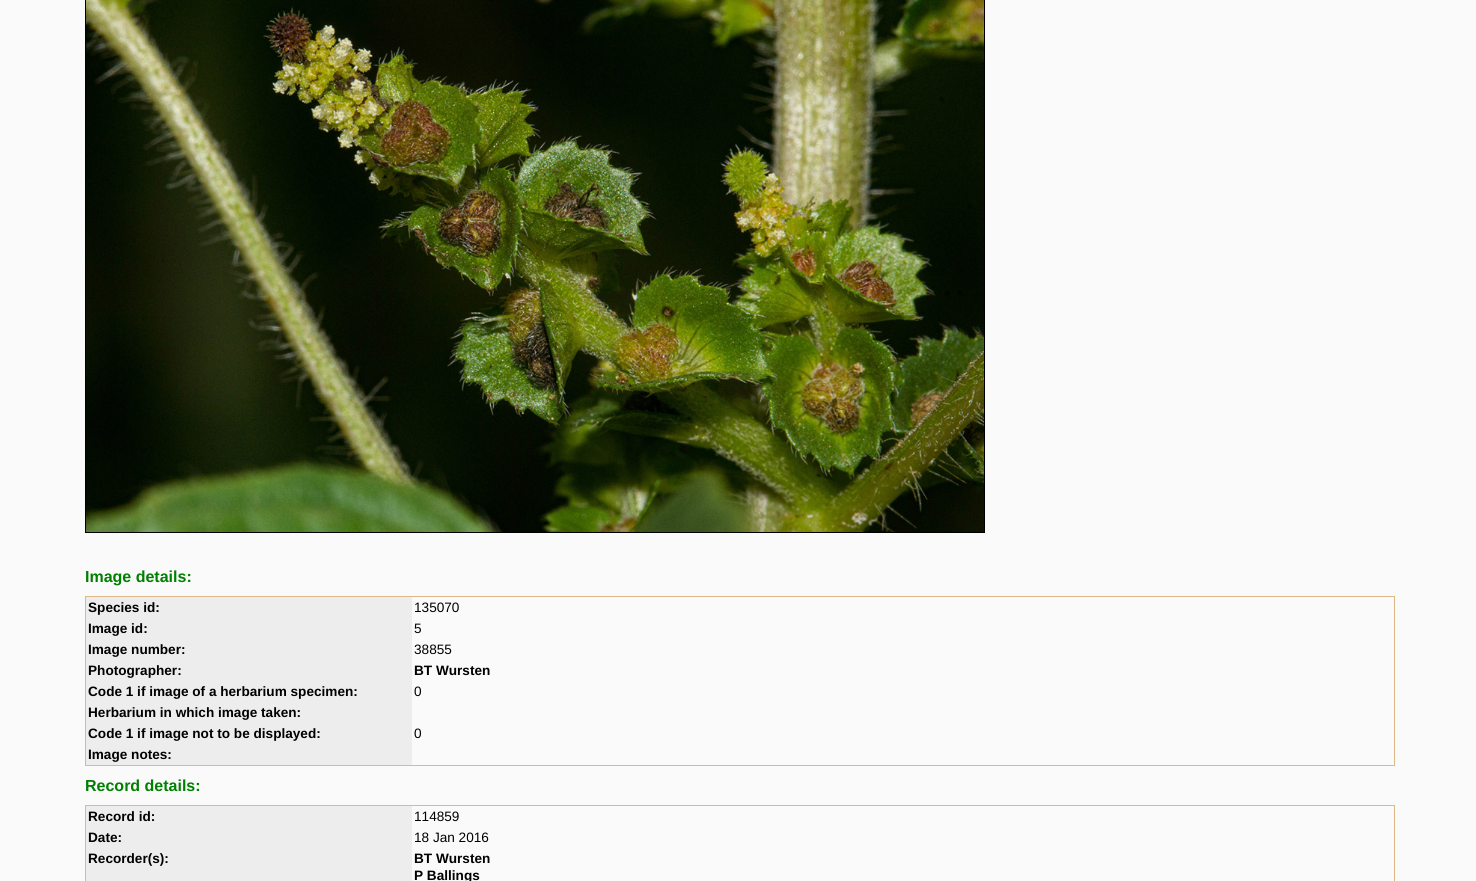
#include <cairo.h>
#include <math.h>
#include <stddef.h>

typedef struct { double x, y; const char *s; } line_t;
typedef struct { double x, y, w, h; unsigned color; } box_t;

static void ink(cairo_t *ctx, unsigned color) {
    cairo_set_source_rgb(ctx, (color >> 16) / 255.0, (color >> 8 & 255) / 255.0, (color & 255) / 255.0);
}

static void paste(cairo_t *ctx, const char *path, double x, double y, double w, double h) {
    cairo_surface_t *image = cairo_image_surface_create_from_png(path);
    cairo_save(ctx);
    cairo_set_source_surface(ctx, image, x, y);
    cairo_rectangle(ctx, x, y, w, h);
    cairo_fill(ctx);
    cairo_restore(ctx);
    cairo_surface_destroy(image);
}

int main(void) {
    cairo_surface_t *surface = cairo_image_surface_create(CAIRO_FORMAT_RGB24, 1476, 881);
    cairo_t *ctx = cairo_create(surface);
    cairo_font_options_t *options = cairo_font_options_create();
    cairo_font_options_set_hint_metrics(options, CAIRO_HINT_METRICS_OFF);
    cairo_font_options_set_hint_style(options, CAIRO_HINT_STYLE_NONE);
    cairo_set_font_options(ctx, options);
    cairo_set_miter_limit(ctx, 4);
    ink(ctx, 0xFAFAFA);
    cairo_paint(ctx);
    cairo_rectangle(ctx, 85.5, -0.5, 899, 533);
    ink(ctx, 0x000000);
    cairo_set_line_width(ctx, 1);
    cairo_stroke(ctx);
    paste(ctx, "media/1.png", 86, 0, 898, 532);
    cairo_select_font_face(ctx, "Liberation Sans", CAIRO_FONT_SLANT_NORMAL, CAIRO_FONT_WEIGHT_BOLD);
    cairo_set_font_size(ctx, 16);
    ink(ctx, 0x008000);
    cairo_move_to(ctx, 85, 582);
    cairo_show_text(ctx, "Image details:");
    {
        static const box_t items[] = {
            {85, 596, 1310, 1, 0xDEB887},
            {1394, 596, 1, 170, 0xDEB887},
            {85, 765, 1310, 1, 0xDEB887},
            {85, 596, 1, 170, 0xDEB887},
            {86, 597, 326, 168, 0xEEEDED},
        };
        for (size_t i = 0; i < sizeof items / sizeof *items; i++) {
            ink(ctx, items[i].color);
            cairo_rectangle(ctx, items[i].x, items[i].y, items[i].w, items[i].h);
            cairo_fill(ctx);
        }
    }
    cairo_set_font_size(ctx, 13.6);
    ink(ctx, 0x000000);
    cairo_move_to(ctx, 88, 612);
    cairo_show_text(ctx, "Species id:");
    cairo_select_font_face(ctx, "Liberation Sans", CAIRO_FONT_SLANT_NORMAL, CAIRO_FONT_WEIGHT_NORMAL);
    cairo_move_to(ctx, 414, 612);
    cairo_show_text(ctx, "135070");
    cairo_select_font_face(ctx, "Liberation Sans", CAIRO_FONT_SLANT_NORMAL, CAIRO_FONT_WEIGHT_BOLD);
    cairo_move_to(ctx, 88, 633);
    cairo_show_text(ctx, "Image id:");
    cairo_select_font_face(ctx, "Liberation Sans", CAIRO_FONT_SLANT_NORMAL, CAIRO_FONT_WEIGHT_NORMAL);
    cairo_move_to(ctx, 414, 633);
    cairo_show_text(ctx, "5");
    cairo_select_font_face(ctx, "Liberation Sans", CAIRO_FONT_SLANT_NORMAL, CAIRO_FONT_WEIGHT_BOLD);
    cairo_move_to(ctx, 88, 654);
    cairo_show_text(ctx, "Image number:");
    cairo_select_font_face(ctx, "Liberation Sans", CAIRO_FONT_SLANT_NORMAL, CAIRO_FONT_WEIGHT_NORMAL);
    cairo_move_to(ctx, 414, 654);
    cairo_show_text(ctx, "38855");
    cairo_select_font_face(ctx, "Liberation Sans", CAIRO_FONT_SLANT_NORMAL, CAIRO_FONT_WEIGHT_BOLD);
    {
        static const line_t items[] = {
            {88, 675, "Photographer:"},
            {414, 675, "BT Wursten"},
            {88, 696, "Code 1 if image of a herbarium specimen:"},
        };
        for (size_t i = 0; i < sizeof items / sizeof *items; i++) {
            cairo_move_to(ctx, items[i].x, items[i].y);
            cairo_show_text(ctx, items[i].s);
        }
    }
    cairo_select_font_face(ctx, "Liberation Sans", CAIRO_FONT_SLANT_NORMAL, CAIRO_FONT_WEIGHT_NORMAL);
    cairo_move_to(ctx, 414, 696);
    cairo_show_text(ctx, "0");
    cairo_select_font_face(ctx, "Liberation Sans", CAIRO_FONT_SLANT_NORMAL, CAIRO_FONT_WEIGHT_BOLD);
    cairo_move_to(ctx, 88, 717);
    cairo_show_text(ctx, "Herbarium in which image taken:");
    cairo_move_to(ctx, 88, 738);
    cairo_show_text(ctx, "Code 1 if image not to be displayed:");
    cairo_select_font_face(ctx, "Liberation Sans", CAIRO_FONT_SLANT_NORMAL, CAIRO_FONT_WEIGHT_NORMAL);
    cairo_move_to(ctx, 414, 738);
    cairo_show_text(ctx, "0");
    cairo_select_font_face(ctx, "Liberation Sans", CAIRO_FONT_SLANT_NORMAL, CAIRO_FONT_WEIGHT_BOLD);
    cairo_move_to(ctx, 88, 759);
    cairo_show_text(ctx, "Image notes:");
    cairo_set_font_size(ctx, 16);
    ink(ctx, 0x008000);
    cairo_move_to(ctx, 85, 791);
    cairo_show_text(ctx, "Record details:");
    {
        static const box_t items[] = {
            {85, 805, 1310, 1, 0xDEB887},
            {1394, 805, 1, 76, 0xDEB887},
            {85, 805, 1, 76, 0xDEB887},
            {86, 806, 326, 75, 0xEEEDED},
        };
        for (size_t i = 0; i < sizeof items / sizeof *items; i++) {
            ink(ctx, items[i].color);
            cairo_rectangle(ctx, items[i].x, items[i].y, items[i].w, items[i].h);
            cairo_fill(ctx);
        }
    }
    cairo_set_font_size(ctx, 13.6);
    ink(ctx, 0x000000);
    cairo_move_to(ctx, 88, 821);
    cairo_show_text(ctx, "Record id:");
    cairo_select_font_face(ctx, "Liberation Sans", CAIRO_FONT_SLANT_NORMAL, CAIRO_FONT_WEIGHT_NORMAL);
    cairo_move_to(ctx, 414, 821);
    cairo_show_text(ctx, "114859");
    cairo_select_font_face(ctx, "Liberation Sans", CAIRO_FONT_SLANT_NORMAL, CAIRO_FONT_WEIGHT_BOLD);
    cairo_move_to(ctx, 88, 842);
    cairo_show_text(ctx, "Date:");
    cairo_select_font_face(ctx, "Liberation Sans", CAIRO_FONT_SLANT_NORMAL, CAIRO_FONT_WEIGHT_NORMAL);
    cairo_move_to(ctx, 414, 842);
    cairo_show_text(ctx, "18 Jan 2016");
    cairo_select_font_face(ctx, "Liberation Sans", CAIRO_FONT_SLANT_NORMAL, CAIRO_FONT_WEIGHT_BOLD);
    {
        static const line_t items[] = {
            {88, 863, "Recorder(s):"},
            {414, 863, "BT Wursten"},
            {414, 880, "P Ballings"},
        };
        for (size_t i = 0; i < sizeof items / sizeof *items; i++) {
            cairo_move_to(ctx, items[i].x, items[i].y);
            cairo_show_text(ctx, items[i].s);
        }
    }
    cairo_surface_write_to_png(surface, "image.png");
    cairo_font_options_destroy(options);
    cairo_destroy(ctx);
    cairo_surface_destroy(surface);
    return 0;
}
